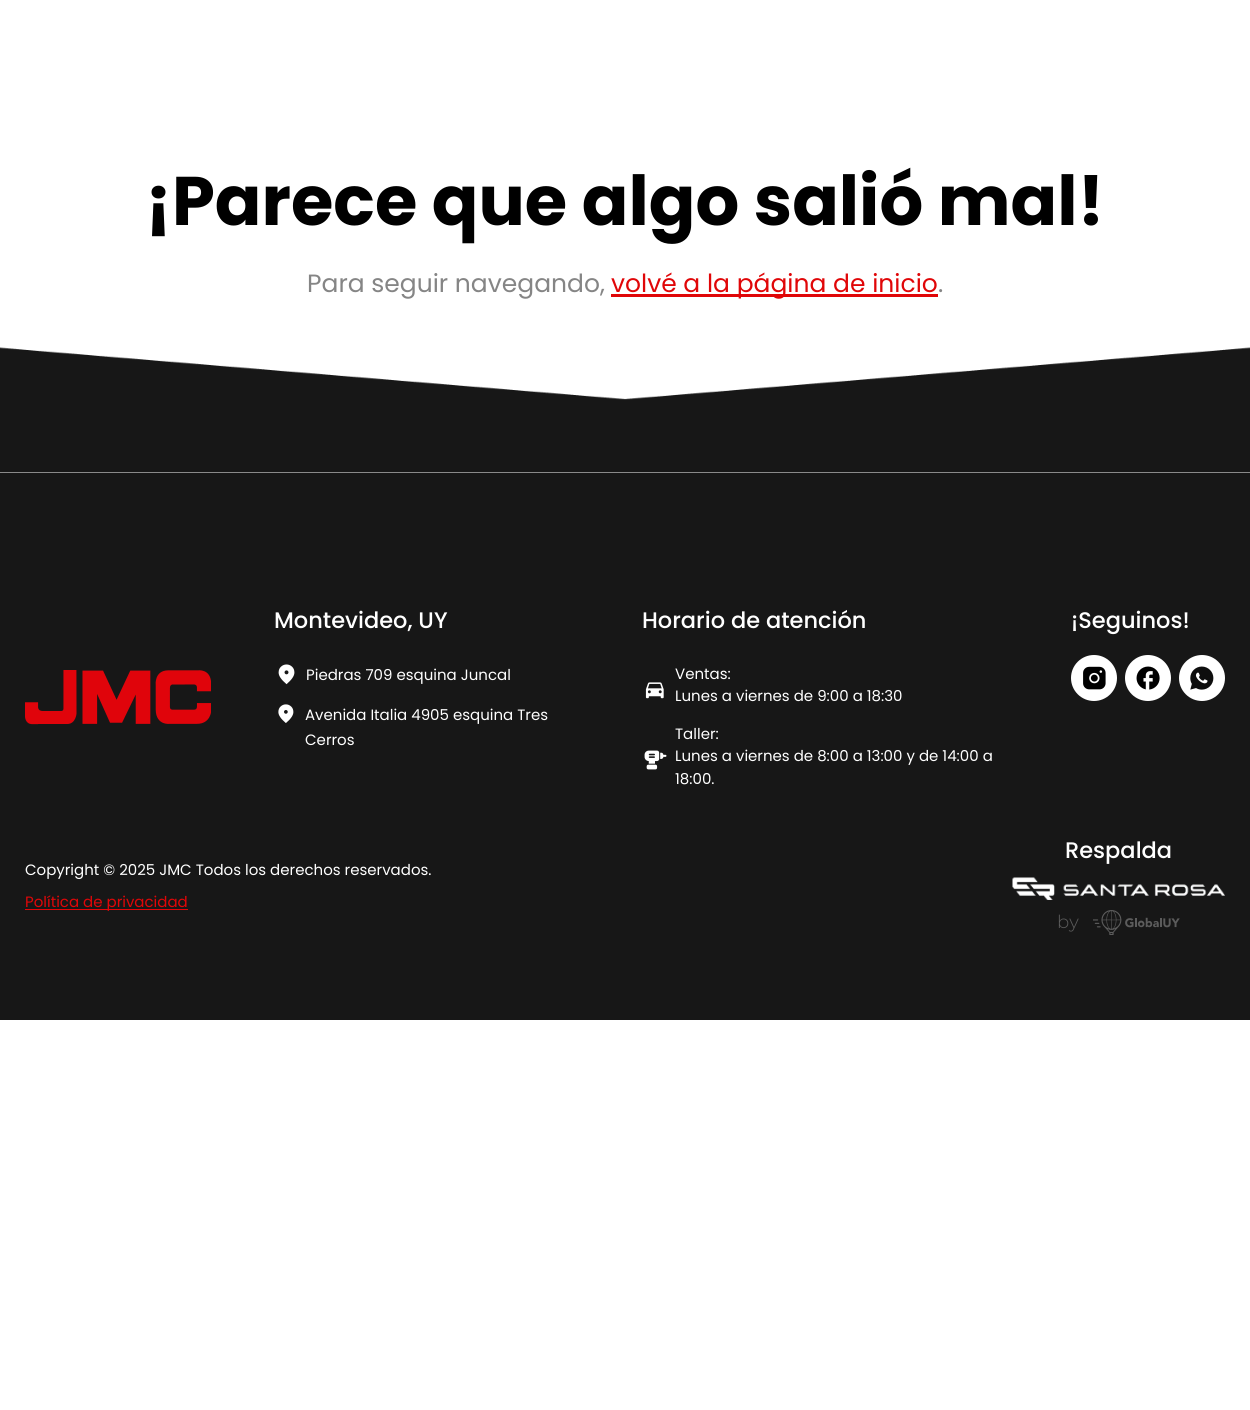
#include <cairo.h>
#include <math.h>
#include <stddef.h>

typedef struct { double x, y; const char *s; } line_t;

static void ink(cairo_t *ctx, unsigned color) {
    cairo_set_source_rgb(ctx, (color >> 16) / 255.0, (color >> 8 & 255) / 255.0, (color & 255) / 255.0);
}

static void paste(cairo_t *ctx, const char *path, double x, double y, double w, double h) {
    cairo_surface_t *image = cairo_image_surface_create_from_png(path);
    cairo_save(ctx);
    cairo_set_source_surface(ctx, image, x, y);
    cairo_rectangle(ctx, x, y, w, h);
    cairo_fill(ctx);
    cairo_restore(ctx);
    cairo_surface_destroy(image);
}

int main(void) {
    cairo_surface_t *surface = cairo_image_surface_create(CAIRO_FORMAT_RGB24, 1250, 1410);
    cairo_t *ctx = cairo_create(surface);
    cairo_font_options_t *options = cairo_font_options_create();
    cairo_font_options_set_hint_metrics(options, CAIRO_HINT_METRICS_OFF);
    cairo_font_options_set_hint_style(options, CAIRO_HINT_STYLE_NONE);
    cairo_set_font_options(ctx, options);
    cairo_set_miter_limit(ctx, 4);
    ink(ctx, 0xFFFFFF);
    cairo_paint(ctx);
    cairo_select_font_face(ctx, "Poppins", CAIRO_FONT_SLANT_NORMAL, CAIRO_FONT_WEIGHT_BOLD);
    cairo_set_font_size(ctx, 68.75);
    ink(ctx, 0x000000);
    cairo_move_to(ctx, 145, 225);
    cairo_show_text(ctx, "¡Parece que algo salió mal!");
    cairo_select_font_face(ctx, "Poppins", CAIRO_FONT_SLANT_NORMAL, CAIRO_FONT_WEIGHT_NORMAL);
    cairo_set_font_size(ctx, 25);
    ink(ctx, 0x858585);
    cairo_move_to(ctx, 307, 292);
    cairo_show_text(ctx, "Para seguir navegando,");
    ink(ctx, 0xE00608);
    cairo_rectangle(ctx, 611, 294, 327, 3);
    cairo_fill(ctx);
    cairo_move_to(ctx, 611, 292);
    cairo_show_text(ctx, "volvé a la página de inicio");
    ink(ctx, 0x858585);
    cairo_move_to(ctx, 938, 292);
    cairo_show_text(ctx, ".");
    ink(ctx, 0x171717);
    cairo_rectangle(ctx, 0, 473, 1250, 547);
    cairo_fill(ctx);
    paste(ctx, "media/1.png", 0, 347, 1250, 126);
    cairo_select_font_face(ctx, "Poppins Medium", CAIRO_FONT_SLANT_NORMAL, CAIRO_FONT_WEIGHT_NORMAL);
    cairo_set_font_size(ctx, 22.5);
    ink(ctx, 0xFFFFFF);
    cairo_move_to(ctx, 274, 628);
    cairo_show_text(ctx, "Montevideo, UY");
    paste(ctx, "media/2.png", 278, 664, 17, 21);
    cairo_select_font_face(ctx, "Poppins", CAIRO_FONT_SLANT_NORMAL, CAIRO_FONT_WEIGHT_NORMAL);
    cairo_set_font_size(ctx, 15);
    cairo_move_to(ctx, 306, 680);
    cairo_show_text(ctx, "Piedras 709 esquina Juncal");
    paste(ctx, "media/3.png", 278, 704, 16, 19);
    cairo_move_to(ctx, 305, 720);
    cairo_show_text(ctx, "Avenida Italia 4905 esquina Tres");
    cairo_move_to(ctx, 305, 745);
    cairo_show_text(ctx, "Cerros");
    cairo_select_font_face(ctx, "Poppins Medium", CAIRO_FONT_SLANT_NORMAL, CAIRO_FONT_WEIGHT_NORMAL);
    cairo_set_font_size(ctx, 22.5);
    cairo_move_to(ctx, 642, 628);
    cairo_show_text(ctx, "Horario de atención");
    paste(ctx, "media/4.png", 645, 682, 19, 17);
    cairo_select_font_face(ctx, "Poppins", CAIRO_FONT_SLANT_NORMAL, CAIRO_FONT_WEIGHT_NORMAL);
    cairo_set_font_size(ctx, 15);
    cairo_move_to(ctx, 675, 679);
    cairo_show_text(ctx, "Ventas:");
    cairo_move_to(ctx, 675, 701);
    cairo_show_text(ctx, "Lunes a viernes de 9:00 a 18:30");
    paste(ctx, "media/5.png", 644, 750, 23, 20);
    {
        static const line_t items[] = {
            {675, 739, "Taller:"},
            {675, 761, "Lunes a viernes de 8:00 a 13:00 y de 14:00 a"},
            {675, 784, "18:00."},
        };
        for (size_t i = 0; i < sizeof items / sizeof *items; i++) {
            cairo_move_to(ctx, items[i].x, items[i].y);
            cairo_show_text(ctx, items[i].s);
        }
    }
    cairo_select_font_face(ctx, "Poppins Medium", CAIRO_FONT_SLANT_NORMAL, CAIRO_FONT_WEIGHT_NORMAL);
    cairo_set_font_size(ctx, 22.5);
    cairo_move_to(ctx, 1071, 628);
    cairo_show_text(ctx, "¡Seguinos!");
    paste(ctx, "media/6.png", 1071, 655, 46, 46);
    paste(ctx, "media/7.png", 1125, 655, 46, 46);
    paste(ctx, "media/8.png", 1179, 655, 46, 46);
    paste(ctx, "media/9.png", 25, 670, 186, 55);
    cairo_select_font_face(ctx, "Poppins", CAIRO_FONT_SLANT_NORMAL, CAIRO_FONT_WEIGHT_NORMAL);
    cairo_set_font_size(ctx, 15);
    cairo_move_to(ctx, 25, 875);
    cairo_show_text(ctx, "Copyright © 2025 JMC Todos los derechos reservados.");
    ink(ctx, 0xE00608);
    cairo_rectangle(ctx, 25, 909, 163, 1);
    cairo_fill(ctx);
    cairo_move_to(ctx, 25, 907);
    cairo_show_text(ctx, "Política de privacidad");
    cairo_select_font_face(ctx, "Poppins Medium", CAIRO_FONT_SLANT_NORMAL, CAIRO_FONT_WEIGHT_NORMAL);
    cairo_set_font_size(ctx, 22.5);
    ink(ctx, 0xFFFFFF);
    cairo_move_to(ctx, 1065, 858);
    cairo_show_text(ctx, "Respalda");
    paste(ctx, "media/10.png", 1012, 877, 213, 23);
    cairo_select_font_face(ctx, "Montserrat Light", CAIRO_FONT_SLANT_NORMAL, CAIRO_FONT_WEIGHT_NORMAL);
    cairo_set_font_size(ctx, 18);
    ink(ctx, 0x5D5D5D);
    cairo_move_to(ctx, 1057, 928);
    cairo_show_text(ctx, "by");
    paste(ctx, "media/11.png", 1093, 910, 87, 25);
    cairo_surface_write_to_png(surface, "image.png");
    cairo_font_options_destroy(options);
    cairo_destroy(ctx);
    cairo_surface_destroy(surface);
    return 0;
}
